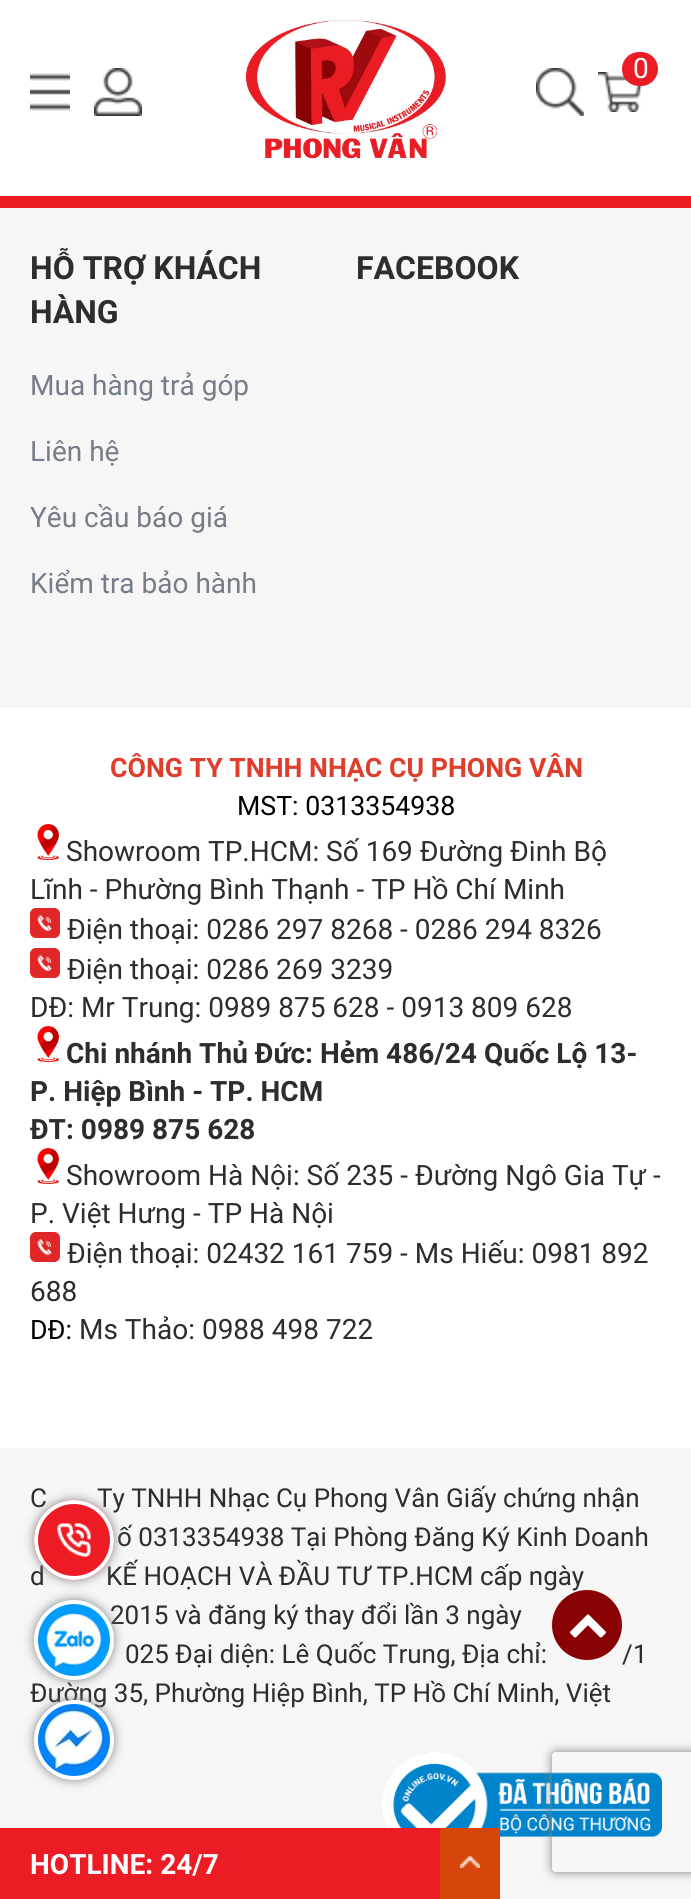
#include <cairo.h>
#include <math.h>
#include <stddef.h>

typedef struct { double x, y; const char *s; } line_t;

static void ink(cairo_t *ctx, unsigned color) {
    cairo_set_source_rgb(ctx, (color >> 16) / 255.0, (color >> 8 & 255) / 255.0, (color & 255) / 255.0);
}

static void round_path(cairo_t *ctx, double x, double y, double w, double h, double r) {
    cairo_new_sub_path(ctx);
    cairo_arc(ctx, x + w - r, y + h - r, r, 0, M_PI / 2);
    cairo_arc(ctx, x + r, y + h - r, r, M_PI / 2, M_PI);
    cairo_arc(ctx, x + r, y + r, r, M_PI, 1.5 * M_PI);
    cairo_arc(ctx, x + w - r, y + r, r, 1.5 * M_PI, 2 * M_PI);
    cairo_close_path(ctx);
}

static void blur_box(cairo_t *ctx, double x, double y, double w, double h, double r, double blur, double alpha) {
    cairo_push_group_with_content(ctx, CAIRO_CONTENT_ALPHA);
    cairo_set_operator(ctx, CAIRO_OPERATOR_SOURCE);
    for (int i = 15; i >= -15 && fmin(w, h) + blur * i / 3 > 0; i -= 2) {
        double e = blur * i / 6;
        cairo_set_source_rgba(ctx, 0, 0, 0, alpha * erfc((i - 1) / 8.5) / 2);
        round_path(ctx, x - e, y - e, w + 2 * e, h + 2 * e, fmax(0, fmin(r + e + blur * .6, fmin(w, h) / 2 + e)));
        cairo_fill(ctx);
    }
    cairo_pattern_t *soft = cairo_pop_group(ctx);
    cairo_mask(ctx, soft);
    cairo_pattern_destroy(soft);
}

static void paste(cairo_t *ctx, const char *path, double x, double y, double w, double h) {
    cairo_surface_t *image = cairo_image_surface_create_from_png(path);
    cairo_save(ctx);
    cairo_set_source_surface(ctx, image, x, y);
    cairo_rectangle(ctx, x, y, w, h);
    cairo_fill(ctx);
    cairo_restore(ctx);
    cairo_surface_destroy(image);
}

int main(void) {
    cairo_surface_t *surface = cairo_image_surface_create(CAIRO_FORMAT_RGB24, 691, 1899);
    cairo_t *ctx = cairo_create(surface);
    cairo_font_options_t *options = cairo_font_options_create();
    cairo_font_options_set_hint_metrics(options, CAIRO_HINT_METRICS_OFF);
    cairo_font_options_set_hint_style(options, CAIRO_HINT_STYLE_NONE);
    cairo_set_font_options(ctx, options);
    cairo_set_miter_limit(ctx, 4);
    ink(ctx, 0xF6F6F6);
    cairo_paint(ctx);
    ink(ctx, 0xFFFFFF);
    cairo_rectangle(ctx, 0, 0, 691, 196);
    cairo_fill(ctx);
    paste(ctx, "media/1.png", 30, 73, 40, 38);
    paste(ctx, "media/2.png", 94, 68, 48, 48);
    paste(ctx, "media/3.png", 246, 20, 200, 140);
    paste(ctx, "media/4.png", 536, 68, 48, 48);
    paste(ctx, "media/5.png", 598, 72, 44, 40);
    ink(ctx, 0xEB1C24);
    round_path(ctx, 622, 52, 36, 34, 17);
    cairo_fill(ctx);
    cairo_select_font_face(ctx, "Roboto", CAIRO_FONT_SLANT_NORMAL, CAIRO_FONT_WEIGHT_NORMAL);
    cairo_set_font_size(ctx, 28);
    ink(ctx, 0xFFFFFF);
    cairo_move_to(ctx, 633, 78);
    cairo_show_text(ctx, "0");
    ink(ctx, 0xEB1C24);
    cairo_rectangle(ctx, 0, 196, 691, 12);
    cairo_fill(ctx);
    cairo_select_font_face(ctx, "Roboto", CAIRO_FONT_SLANT_NORMAL, CAIRO_FONT_WEIGHT_BOLD);
    cairo_set_font_size(ctx, 32);
    ink(ctx, 0x2D2D2D);
    cairo_move_to(ctx, 30, 279);
    cairo_show_text(ctx, "HỖ TRỢ KHÁCH");
    cairo_move_to(ctx, 30, 323);
    cairo_show_text(ctx, "HÀNG");
    cairo_select_font_face(ctx, "Roboto", CAIRO_FONT_SLANT_NORMAL, CAIRO_FONT_WEIGHT_NORMAL);
    cairo_set_font_size(ctx, 28);
    ink(ctx, 0x757C8A);
    {
        static const line_t items[] = {
            {30, 395, "Mua hàng trả góp"},
            {30, 461, "Liên hệ"},
            {30, 527, "Yêu cầu báo giá"},
            {30, 593, "Kiểm tra bảo hành"},
        };
        for (size_t i = 0; i < sizeof items / sizeof *items; i++) {
            cairo_move_to(ctx, items[i].x, items[i].y);
            cairo_show_text(ctx, items[i].s);
        }
    }
    cairo_select_font_face(ctx, "Roboto", CAIRO_FONT_SLANT_NORMAL, CAIRO_FONT_WEIGHT_BOLD);
    cairo_set_font_size(ctx, 32);
    ink(ctx, 0x2D2D2D);
    cairo_move_to(ctx, 356, 279);
    cairo_show_text(ctx, "FACEBOOK");
    ink(ctx, 0xFFFFFF);
    cairo_rectangle(ctx, 0, 708, 691, 740);
    cairo_fill(ctx);
    cairo_set_font_size(ctx, 26.7);
    ink(ctx, 0xE03E2D);
    cairo_move_to(ctx, 110, 777);
    cairo_show_text(ctx, "CÔNG TY TNHH NHẠC CỤ PHONG VÂN");
    cairo_select_font_face(ctx, "Roboto", CAIRO_FONT_SLANT_NORMAL, CAIRO_FONT_WEIGHT_NORMAL);
    ink(ctx, 0x000000);
    cairo_move_to(ctx, 237, 815);
    cairo_show_text(ctx, "MST: 0313354938");
    paste(ctx, "media/6.png", 36, 824, 25, 36);
    cairo_set_font_size(ctx, 28);
    ink(ctx, 0x2D2D2D);
    cairo_move_to(ctx, 66, 861);
    cairo_show_text(ctx, "Showroom TP.HCM: Số 169 Đường Đinh Bộ");
    cairo_move_to(ctx, 30, 899);
    cairo_show_text(ctx, "Lĩnh - Phường Bình Thạnh - TP Hồ Chí Minh");
    paste(ctx, "media/7.png", 30, 908, 30, 30);
    cairo_move_to(ctx, 67, 939);
    cairo_show_text(ctx, "Điện thoại: 0286 297 8268 - 0286 294 8326");
    paste(ctx, "media/8.png", 30, 948, 30, 30);
    cairo_move_to(ctx, 67, 979);
    cairo_show_text(ctx, "Điện thoại: 0286 269 3239");
    cairo_move_to(ctx, 30, 1017);
    cairo_show_text(ctx, "DĐ: Mr Trung: 0989 875 628 - 0913 809 628");
    paste(ctx, "media/6.png", 36, 1026, 25, 36);
    cairo_select_font_face(ctx, "Roboto", CAIRO_FONT_SLANT_NORMAL, CAIRO_FONT_WEIGHT_BOLD);
    {
        static const line_t items[] = {
            {66, 1063, "Chi nhánh Thủ Đức: Hẻm 486/24 Quốc Lộ 13-"},
            {30, 1101, "P. Hiệp Bình - TP. HCM"},
            {30, 1139, "ĐT: 0989 875 628"},
        };
        for (size_t i = 0; i < sizeof items / sizeof *items; i++) {
            cairo_move_to(ctx, items[i].x, items[i].y);
            cairo_show_text(ctx, items[i].s);
        }
    }
    paste(ctx, "media/6.png", 36, 1148, 25, 36);
    cairo_select_font_face(ctx, "Roboto", CAIRO_FONT_SLANT_NORMAL, CAIRO_FONT_WEIGHT_NORMAL);
    cairo_move_to(ctx, 66, 1185);
    cairo_show_text(ctx, "Showroom Hà Nội: Số 235 - Đường Ngô Gia Tự -");
    cairo_move_to(ctx, 30, 1223);
    cairo_show_text(ctx, "P. Việt Hưng - TP Hà Nội");
    paste(ctx, "media/7.png", 30, 1232, 30, 30);
    cairo_move_to(ctx, 67, 1263);
    cairo_show_text(ctx, "Điện thoại: 02432 161 759 - Ms Hiếu: 0981 892");
    cairo_move_to(ctx, 30, 1301);
    cairo_show_text(ctx, "688");
    cairo_set_font_size(ctx, 26.7);
    ink(ctx, 0x000000);
    cairo_move_to(ctx, 30, 1339);
    cairo_show_text(ctx, "DĐ:");
    cairo_set_font_size(ctx, 28);
    ink(ctx, 0x2D2D2D);
    cairo_move_to(ctx, 79, 1339);
    cairo_show_text(ctx, "Ms Thảo: 0988 498 722");
    cairo_set_font_size(ctx, 26);
    {
        static const line_t items[] = {
            {30, 1507, "C"},
            {97, 1507, "Ty TNHH Nhạc Cụ Phong Vân Giấy chứng nhận"},
            {117, 1546, "ố 0313354938 Tại Phòng Đăng Ký Kinh Doanh"},
            {30, 1585, "d"},
            {106, 1585, "KẾ HOẠCH VÀ ĐẦU TƯ TP.HCM cấp ngày"},
            {110, 1624, "2015 và đăng ký thay đổi lần 3 ngày"},
            {125, 1663, "025 Đại diện: Lê Quốc Trung, Địa chỉ:"},
            {622, 1663, "/1"},
            {30, 1702, "Đường 35, Phường Hiệp Bình, TP Hồ Chí Minh, Việt"},
        };
        for (size_t i = 0; i < sizeof items / sizeof *items; i++) {
            cairo_move_to(ctx, items[i].x, items[i].y);
            cairo_show_text(ctx, items[i].s);
        }
    }
    paste(ctx, "media/9.png", 382, 1752, 280, 85);
    ink(ctx, 0x890304);
    cairo_arc(ctx, 587, 1625, 35, 0, 2 * M_PI);
    cairo_fill(ctx);
    paste(ctx, "media/10.png", 570, 1614, 36, 24);
    ink(ctx, 0x888888);
    blur_box(ctx, 34, 1500, 80, 80, 40, 5, 1);
    ink(ctx, 0xED1C24);
    cairo_arc(ctx, 74, 1540, 40, 0, 2 * M_PI);
    cairo_fill(ctx);
    paste(ctx, "media/11.png", 57, 1523, 34, 34);
    cairo_arc(ctx, 74, 1540, 38, 0, 2 * M_PI);
    ink(ctx, 0xFFFFFF);
    cairo_set_line_width(ctx, 4);
    cairo_stroke(ctx);
    ink(ctx, 0x888888);
    blur_box(ctx, 34, 1600, 80, 80, 40, 5, 1);
    paste(ctx, "media/12.png", 38, 1604, 72, 72);
    cairo_arc(ctx, 74, 1640, 38, 0, 2 * M_PI);
    ink(ctx, 0xFFFFFF);
    cairo_stroke(ctx);
    ink(ctx, 0x888888);
    blur_box(ctx, 34, 1700, 80, 80, 40, 5, 1);
    paste(ctx, "media/13.png", 38, 1704, 72, 72);
    cairo_arc(ctx, 74, 1740, 38, 0, 2 * M_PI);
    ink(ctx, 0xFFFFFF);
    cairo_stroke(ctx);
    ink(ctx, 0xEB1C24);
    cairo_rectangle(ctx, 0, 1828, 440, 71);
    cairo_fill(ctx);
    cairo_select_font_face(ctx, "Roboto", CAIRO_FONT_SLANT_NORMAL, CAIRO_FONT_WEIGHT_BOLD);
    cairo_set_font_size(ctx, 28);
    ink(ctx, 0xFFFFFF);
    cairo_move_to(ctx, 30, 1874);
    cairo_show_text(ctx, "HOTLINE: 24/7");
    ink(ctx, 0xD64509);
    cairo_rectangle(ctx, 440, 1828, 60, 71);
    cairo_fill(ctx);
    paste(ctx, "media/14.png", 460, 1856, 20, 12);
    cairo_save(ctx);
    cairo_set_fill_rule(ctx, CAIRO_FILL_RULE_EVEN_ODD);
    cairo_new_path(ctx);
    cairo_move_to(ctx, 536, 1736);
    cairo_line_to(ctx, 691, 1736);
    cairo_line_to(ctx, 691, 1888);
    cairo_line_to(ctx, 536, 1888);
    cairo_close_path(ctx);
    cairo_move_to(ctx, 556, 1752);
    cairo_line_to(ctx, 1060, 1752);
    cairo_curve_to(ctx, 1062, 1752, 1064, 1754, 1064, 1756);
    cairo_line_to(ctx, 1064, 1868);
    cairo_curve_to(ctx, 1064, 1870, 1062, 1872, 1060, 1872);
    cairo_line_to(ctx, 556, 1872);
    cairo_curve_to(ctx, 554, 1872, 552, 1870, 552, 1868);
    cairo_line_to(ctx, 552, 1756);
    cairo_curve_to(ctx, 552, 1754, 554, 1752, 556, 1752);
    cairo_close_path(ctx);
    cairo_clip(ctx);
    ink(ctx, 0x808080);
    blur_box(ctx, 552, 1752, 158, 120, 4, 5, 1);
    cairo_restore(ctx);
    cairo_surface_write_to_png(surface, "image.png");
    cairo_font_options_destroy(options);
    cairo_destroy(ctx);
    cairo_surface_destroy(surface);
    return 0;
}
